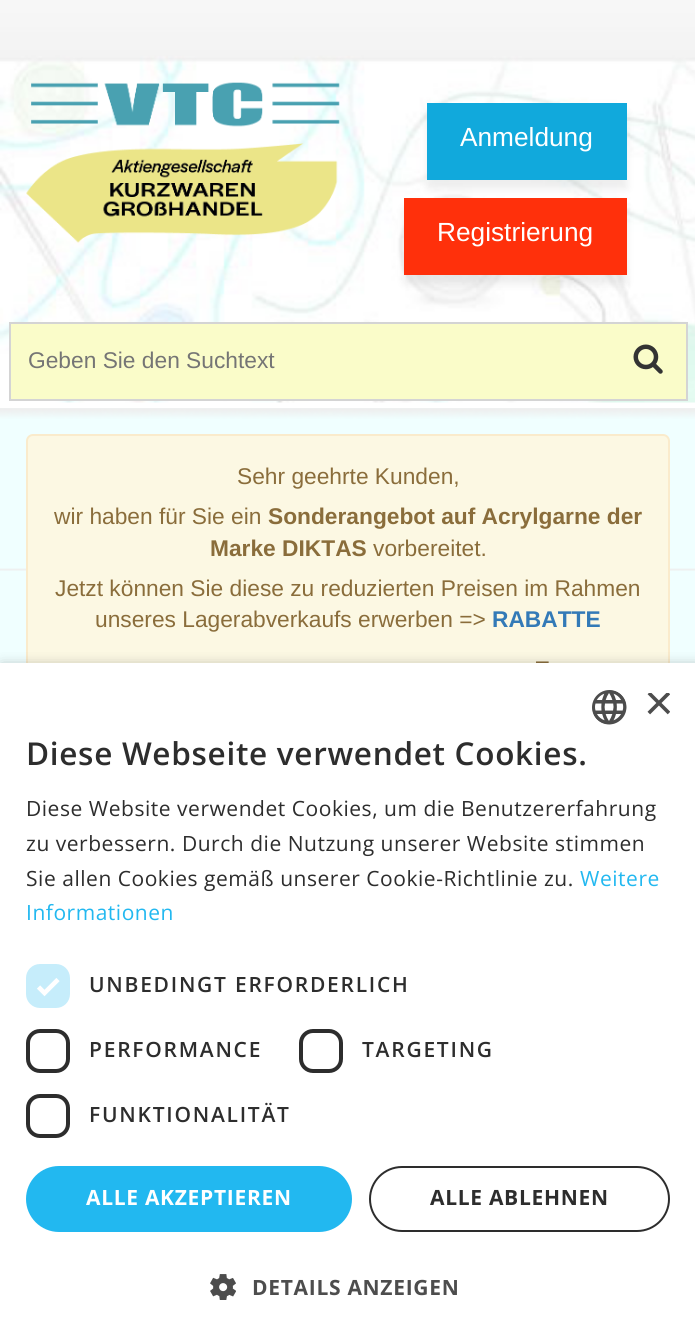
#include <cairo.h>
#include <math.h>
#include <stddef.h>

typedef struct { double x, y; const char *s; } line_t;
typedef struct { double x, y, w, h; unsigned color; } box_t;

static void ink(cairo_t *ctx, unsigned color) {
    cairo_set_source_rgb(ctx, (color >> 16) / 255.0, (color >> 8 & 255) / 255.0, (color & 255) / 255.0);
}

static void write_spaced(cairo_t *ctx, double x, double y, const char *s, double letter, double word) {
    cairo_move_to(ctx, x, y);
    while (*s) {
        char ch[5] = {0};
        int n = 0;
        do ch[n++] = *s++; while ((*s & 0xC0) == 0x80);
        cairo_show_text(ctx, ch);
        cairo_rel_move_to(ctx, letter + word * (*ch == ' '), 0);
    }
}

static void round_path(cairo_t *ctx, double x, double y, double w, double h, double r) {
    cairo_new_sub_path(ctx);
    cairo_arc(ctx, x + w - r, y + h - r, r, 0, M_PI / 2);
    cairo_arc(ctx, x + r, y + h - r, r, M_PI / 2, M_PI);
    cairo_arc(ctx, x + r, y + r, r, M_PI, 1.5 * M_PI);
    cairo_arc(ctx, x + w - r, y + r, r, 1.5 * M_PI, 2 * M_PI);
    cairo_close_path(ctx);
}

static void blur_box(cairo_t *ctx, double x, double y, double w, double h, double r, double blur, double alpha) {
    cairo_push_group_with_content(ctx, CAIRO_CONTENT_ALPHA);
    cairo_set_operator(ctx, CAIRO_OPERATOR_SOURCE);
    for (int i = 15; i >= -15 && fmin(w, h) + blur * i / 3 > 0; i -= 2) {
        double e = blur * i / 6;
        cairo_set_source_rgba(ctx, 0, 0, 0, alpha * erfc((i - 1) / 8.5) / 2);
        round_path(ctx, x - e, y - e, w + 2 * e, h + 2 * e, fmax(0, fmin(r + e + blur * .6, fmin(w, h) / 2 + e)));
        cairo_fill(ctx);
    }
    cairo_pattern_t *soft = cairo_pop_group(ctx);
    cairo_mask(ctx, soft);
    cairo_pattern_destroy(soft);
}

static void paste(cairo_t *ctx, const char *path, double x, double y, double w, double h) {
    cairo_surface_t *image = cairo_image_surface_create_from_png(path);
    cairo_save(ctx);
    cairo_set_source_surface(ctx, image, x, y);
    cairo_rectangle(ctx, x, y, w, h);
    cairo_fill(ctx);
    cairo_restore(ctx);
    cairo_surface_destroy(image);
}

int main(void) {
    cairo_surface_t *surface = cairo_image_surface_create(CAIRO_FORMAT_RGB24, 695, 1343);
    cairo_t *ctx = cairo_create(surface);
    cairo_font_options_t *options = cairo_font_options_create();
    cairo_font_options_set_hint_metrics(options, CAIRO_HINT_METRICS_OFF);
    cairo_font_options_set_hint_style(options, CAIRO_HINT_STYLE_NONE);
    cairo_set_font_options(ctx, options);
    cairo_set_miter_limit(ctx, 4);
    ink(ctx, 0xF0FFFF);
    cairo_paint(ctx);
    ink(ctx, 0xFFFFFF);
    cairo_rectangle(ctx, 0, 402, 695, 6);
    cairo_fill(ctx);
    paste(ctx, "media/1.png", 0, 0, 695, 403);
    paste(ctx, "media/2.png", 26, 82, 314, 161);
    ink(ctx, 0x000000);
    blur_box(ctx, 427, 112, 200, 77, 0, 4.5, 0.07);
    ink(ctx, 0x11A9DC);
    cairo_rectangle(ctx, 427, 103, 200, 77);
    cairo_fill(ctx);
    cairo_select_font_face(ctx, "Liberation Sans", CAIRO_FONT_SLANT_NORMAL, CAIRO_FONT_WEIGHT_NORMAL);
    cairo_set_font_size(ctx, 26.25);
    ink(ctx, 0xFFFFFF);
    cairo_move_to(ctx, 460, 146);
    cairo_show_text(ctx, "Anmeldung");
    ink(ctx, 0x000000);
    blur_box(ctx, 404, 207, 223, 77, 0, 4.5, 0.07);
    ink(ctx, 0xFF300B);
    cairo_rectangle(ctx, 404, 198, 223, 77);
    cairo_fill(ctx);
    ink(ctx, 0xFFFFFF);
    cairo_move_to(ctx, 437, 241);
    cairo_show_text(ctx, "Registrierung");
    {
        static const box_t items[] = {
            {11, 324, 675, 75, 0xFAFCC9},
            {9, 322, 679, 2, 0xD4D4D4},
            {686, 322, 2, 79, 0xD4D4D4},
            {9, 399, 679, 2, 0xD4D4D4},
        };
        for (size_t i = 0; i < sizeof items / sizeof *items; i++) {
            ink(ctx, items[i].color);
            cairo_rectangle(ctx, items[i].x, items[i].y, items[i].w, items[i].h);
            cairo_fill(ctx);
        }
    }
    paste(ctx, "media/3.png", 633, 344, 30, 30);
    cairo_rectangle(ctx, 9, 322, 2, 79);
    cairo_fill(ctx);
    cairo_set_font_size(ctx, 22.75);
    ink(ctx, 0x757575);
    cairo_move_to(ctx, 28, 368);
    cairo_show_text(ctx, "Geben Sie den Suchtext");
    paste(ctx, "media/4.png", 0, 408, 695, 163);
    ink(ctx, 0xFCF8E3);
    round_path(ctx, 27, 435, 642, 418, 6);
    cairo_fill_preserve(ctx);
    ink(ctx, 0xFAEBCC);
    cairo_stroke(ctx);
    ink(ctx, 0x8A6D3B);
    cairo_move_to(ctx, 237, 484);
    cairo_show_text(ctx, "Sehr geehrte Kunden,");
    cairo_move_to(ctx, 54, 524);
    cairo_show_text(ctx, "wir haben für Sie ein");
    cairo_select_font_face(ctx, "Liberation Sans", CAIRO_FONT_SLANT_NORMAL, CAIRO_FONT_WEIGHT_BOLD);
    cairo_move_to(ctx, 268, 524);
    cairo_show_text(ctx, "Sonderangebot auf Acrylgarne der");
    cairo_move_to(ctx, 210, 556);
    cairo_show_text(ctx, "Marke DIKTAS");
    cairo_select_font_face(ctx, "Liberation Sans", CAIRO_FONT_SLANT_NORMAL, CAIRO_FONT_WEIGHT_NORMAL);
    {
        static const line_t items[] = {
            {373, 556, "vorbereitet."},
            {55, 596, "Jetzt können Sie diese zu reduzierten Preisen im Rahmen"},
            {95, 627, "unseres Lagerabverkaufs erwerben =>"},
        };
        for (size_t i = 0; i < sizeof items / sizeof *items; i++) {
            cairo_move_to(ctx, items[i].x, items[i].y);
            cairo_show_text(ctx, items[i].s);
        }
    }
    cairo_select_font_face(ctx, "Liberation Sans", CAIRO_FONT_SLANT_NORMAL, CAIRO_FONT_WEIGHT_BOLD);
    ink(ctx, 0x337AB7);
    cairo_move_to(ctx, 492, 627);
    cairo_show_text(ctx, "RABATTE");
    cairo_select_font_face(ctx, "Liberation Sans", CAIRO_FONT_SLANT_NORMAL, CAIRO_FONT_WEIGHT_NORMAL);
    ink(ctx, 0x8A6D3B);
    cairo_move_to(ctx, 536, 668);
    cairo_show_text(ctx, "–");
    ink(ctx, 0x000000);
    blur_box(ctx, 2, 667, 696, 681, 0, 7, 0.35);
    ink(ctx, 0xFFFFFF);
    cairo_rectangle(ctx, 0, 663, 695, 680);
    cairo_fill(ctx);
    paste(ctx, "media/5.png", 592, 690, 35, 35);
    cairo_save(ctx);
    cairo_rectangle(ctx, 644, 693, 26, 26);
    cairo_clip(ctx);
    cairo_set_font_size(ctx, 51);
    ink(ctx, 0x4D4D4D);
    cairo_move_to(ctx, 644, 720);
    cairo_show_text(ctx, "×");
    cairo_restore(ctx);
    cairo_select_font_face(ctx, "Open Sans SemiBold", CAIRO_FONT_SLANT_NORMAL, CAIRO_FONT_WEIGHT_NORMAL);
    cairo_set_font_size(ctx, 31.5);
    ink(ctx, 0x2D2D2D);
    write_spaced(ctx, 26, 765, "Diese Webseite verwendet Cookies.", 0.7, 0);
    cairo_select_font_face(ctx, "Open Sans", CAIRO_FONT_SLANT_NORMAL, CAIRO_FONT_WEIGHT_NORMAL);
    cairo_set_font_size(ctx, 21);
    {
        static const line_t items[] = {
            {26, 816, "Diese Website verwendet Cookies, um die Benutzererfahrung"},
            {26, 851, "zu verbessern. Durch die Nutzung unserer Website stimmen"},
            {26, 886, "Sie allen Cookies gemäß unserer Cookie-Richtlinie zu."},
        };
        for (size_t i = 0; i < sizeof items / sizeof *items; i++) {
            write_spaced(ctx, items[i].x, items[i].y, items[i].s, 0.53, 0);
        }
    }
    ink(ctx, 0x22B8F0);
    write_spaced(ctx, 580, 886, "Weitere", 0.53, 0);
    write_spaced(ctx, 26, 920, "Informationen", 0.53, 0);
    ink(ctx, 0xC6EDFB);
    round_path(ctx, 26, 964, 44, 44, 14);
    cairo_fill(ctx);
    cairo_new_path(ctx);
    cairo_move_to(ctx, 38.5, 987);
    cairo_line_to(ctx, 44.5, 993);
    cairo_line_to(ctx, 58, 979.5);
    ink(ctx, 0xFFFFFF);
    cairo_set_line_width(ctx, 4.6);
    cairo_stroke(ctx);
    cairo_select_font_face(ctx, "Open Sans SemiBold", CAIRO_FONT_SLANT_NORMAL, CAIRO_FONT_WEIGHT_NORMAL);
    ink(ctx, 0x2D2D2D);
    write_spaced(ctx, 89, 992, "UNBEDINGT ERFORDERLICH", 1.75, 0);
    round_path(ctx, 28, 1031, 40, 40, 12);
    cairo_set_line_width(ctx, 4);
    cairo_stroke(ctx);
    write_spaced(ctx, 89, 1057, "PERFORMANCE", 1.75, 0);
    round_path(ctx, 301, 1031, 40, 40, 12);
    cairo_stroke(ctx);
    write_spaced(ctx, 362, 1057, "TARGETING", 1.75, 0);
    round_path(ctx, 28, 1096, 40, 40, 12);
    cairo_stroke(ctx);
    write_spaced(ctx, 89, 1122, "FUNKTIONALITÄT", 1.75, 0);
    ink(ctx, 0x22B8F0);
    round_path(ctx, 26, 1166, 326, 66, 33);
    cairo_fill(ctx);
    cairo_select_font_face(ctx, "Open Sans", CAIRO_FONT_SLANT_NORMAL, CAIRO_FONT_WEIGHT_BOLD);
    ink(ctx, 0xFFFFFF);
    write_spaced(ctx, 86, 1205, "ALLE AKZEPTIEREN", 0.7, 0);
    round_path(ctx, 370, 1167, 299, 64, 32);
    ink(ctx, 0x2D2D2D);
    cairo_set_line_width(ctx, 2);
    cairo_stroke(ctx);
    write_spaced(ctx, 430, 1205, "ALLE ABLEHNEN", 0.7, 0);
    paste(ctx, "media/6.png", 210, 1274, 26, 26);
    ink(ctx, 0x4D4D4D);
    write_spaced(ctx, 252, 1295, "DETAILS ANZEIGEN", 0.7, 0);
    cairo_surface_write_to_png(surface, "image.png");
    cairo_font_options_destroy(options);
    cairo_destroy(ctx);
    cairo_surface_destroy(surface);
    return 0;
}
